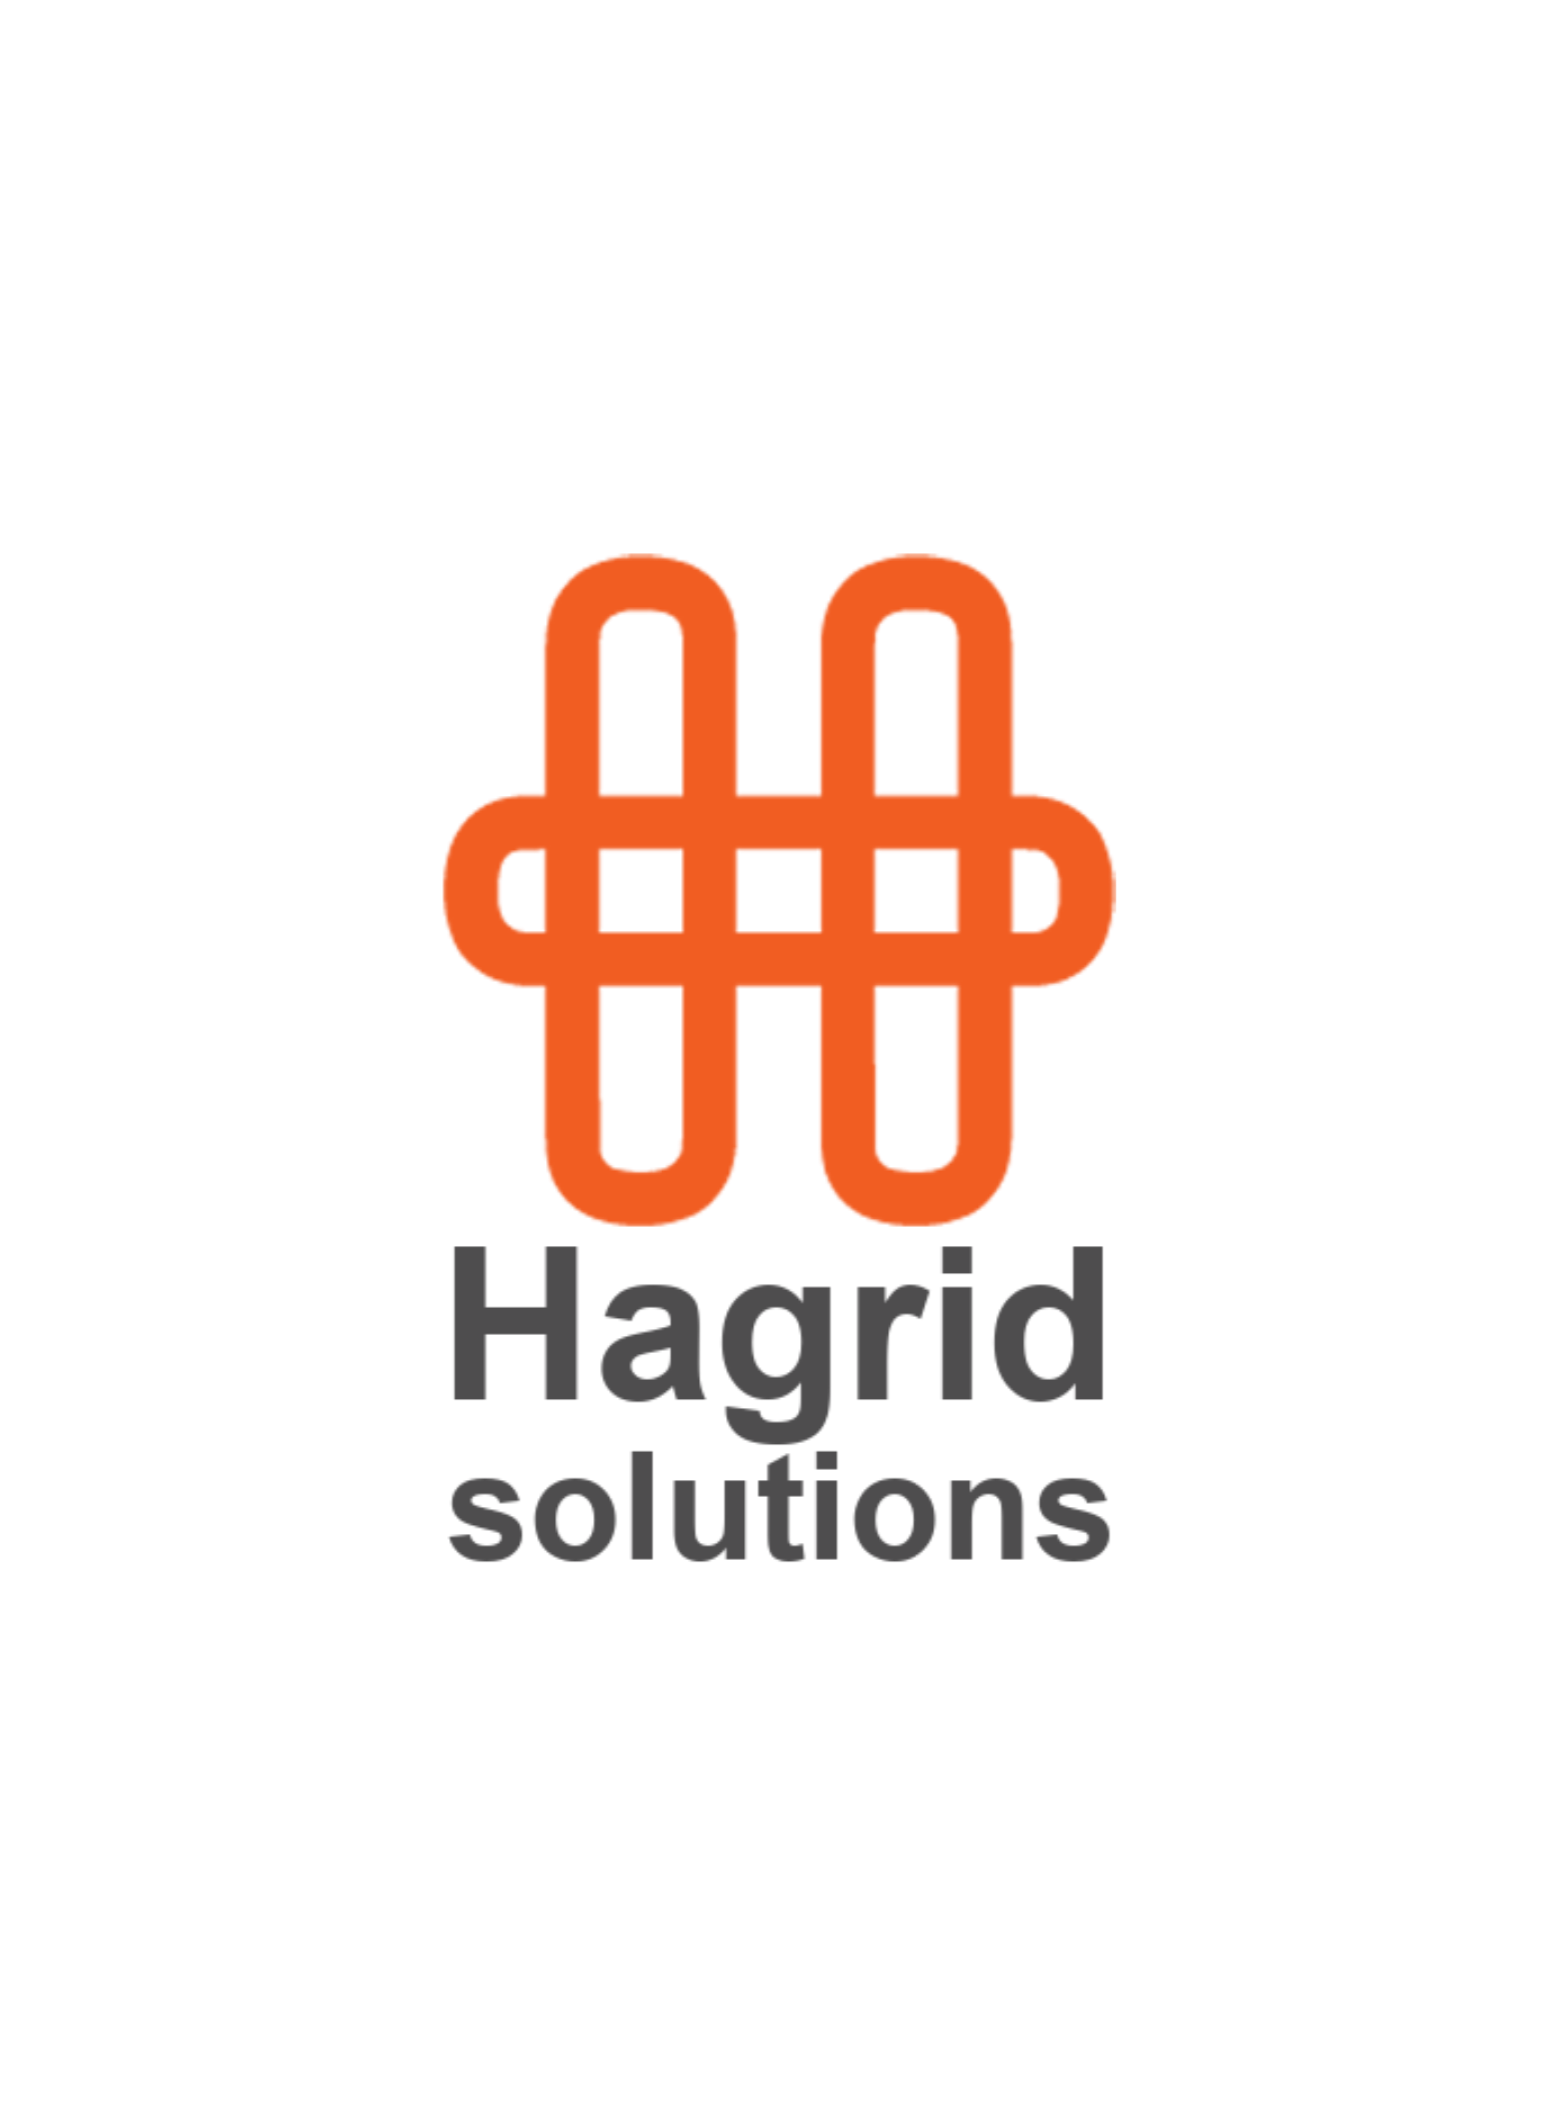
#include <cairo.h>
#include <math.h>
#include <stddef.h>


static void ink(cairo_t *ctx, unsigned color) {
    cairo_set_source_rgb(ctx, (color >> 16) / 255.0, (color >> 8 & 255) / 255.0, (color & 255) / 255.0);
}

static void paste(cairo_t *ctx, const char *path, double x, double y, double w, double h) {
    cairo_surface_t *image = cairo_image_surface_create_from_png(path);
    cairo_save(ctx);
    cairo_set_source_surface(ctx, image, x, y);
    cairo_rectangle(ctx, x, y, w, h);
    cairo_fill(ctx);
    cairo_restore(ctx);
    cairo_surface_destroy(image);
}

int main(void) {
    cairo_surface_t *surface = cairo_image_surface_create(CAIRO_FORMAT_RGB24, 1556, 2120);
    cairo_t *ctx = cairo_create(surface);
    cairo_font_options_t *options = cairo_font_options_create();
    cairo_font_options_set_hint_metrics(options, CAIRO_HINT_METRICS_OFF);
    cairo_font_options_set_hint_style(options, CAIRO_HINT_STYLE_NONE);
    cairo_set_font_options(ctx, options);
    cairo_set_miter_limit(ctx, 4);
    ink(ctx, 0xFFFFFF);
    cairo_paint(ctx);
    paste(ctx, "media/1.png", 442, 553, 675, 1010);
    cairo_surface_write_to_png(surface, "image.png");
    cairo_font_options_destroy(options);
    cairo_destroy(ctx);
    cairo_surface_destroy(surface);
    return 0;
}
